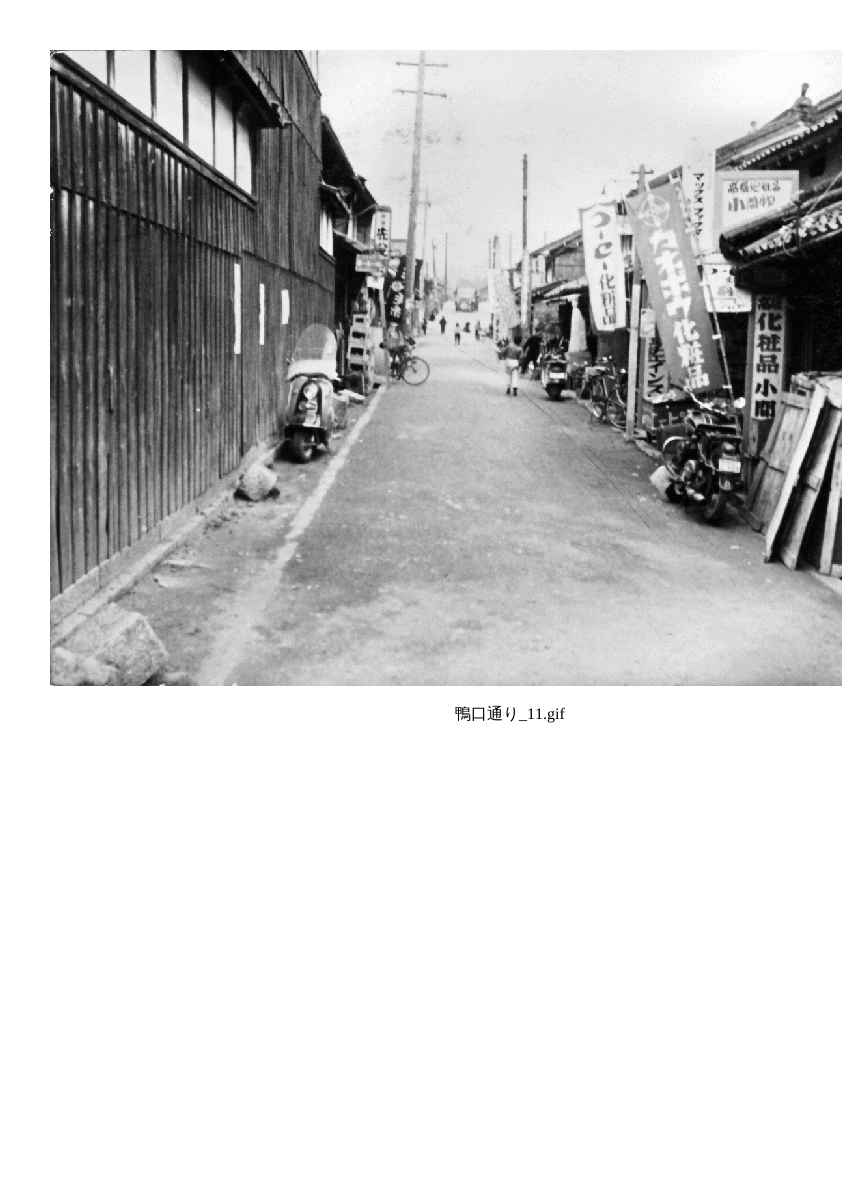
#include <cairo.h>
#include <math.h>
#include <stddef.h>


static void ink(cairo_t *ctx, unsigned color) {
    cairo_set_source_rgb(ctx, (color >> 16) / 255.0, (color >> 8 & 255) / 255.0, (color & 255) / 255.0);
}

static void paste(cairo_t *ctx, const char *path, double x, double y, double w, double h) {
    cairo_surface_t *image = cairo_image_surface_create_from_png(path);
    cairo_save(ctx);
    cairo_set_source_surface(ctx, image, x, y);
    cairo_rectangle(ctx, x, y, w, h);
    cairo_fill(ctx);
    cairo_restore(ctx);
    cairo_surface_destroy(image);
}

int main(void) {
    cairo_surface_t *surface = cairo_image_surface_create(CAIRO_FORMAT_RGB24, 842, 1178);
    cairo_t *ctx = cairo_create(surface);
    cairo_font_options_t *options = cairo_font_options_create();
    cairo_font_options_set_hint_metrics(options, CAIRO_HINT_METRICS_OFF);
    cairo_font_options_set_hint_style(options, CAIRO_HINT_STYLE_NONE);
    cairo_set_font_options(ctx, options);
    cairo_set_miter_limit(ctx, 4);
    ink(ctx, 0xFFFFFF);
    cairo_paint(ctx);
    paste(ctx, "media/1.png", 50, 50, 792, 636);
    cairo_select_font_face(ctx, "WenQuanYi Zen Hei Medium", CAIRO_FONT_SLANT_NORMAL, CAIRO_FONT_WEIGHT_NORMAL);
    cairo_set_font_size(ctx, 16);
    ink(ctx, 0x000000);
    cairo_move_to(ctx, 455, 719);
    cairo_show_text(ctx, "鴨口通り");
    cairo_select_font_face(ctx, "Liberation Serif", CAIRO_FONT_SLANT_NORMAL, CAIRO_FONT_WEIGHT_NORMAL);
    cairo_move_to(ctx, 519, 719);
    cairo_show_text(ctx, "_11.gif");
    cairo_surface_write_to_png(surface, "image.png");
    cairo_font_options_destroy(options);
    cairo_destroy(ctx);
    cairo_surface_destroy(surface);
    return 0;
}
